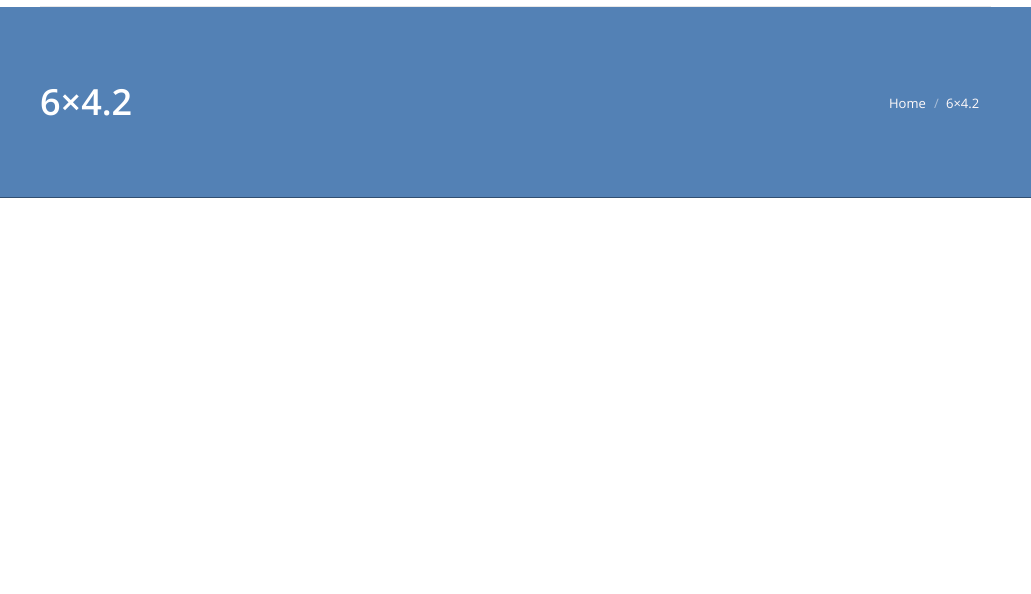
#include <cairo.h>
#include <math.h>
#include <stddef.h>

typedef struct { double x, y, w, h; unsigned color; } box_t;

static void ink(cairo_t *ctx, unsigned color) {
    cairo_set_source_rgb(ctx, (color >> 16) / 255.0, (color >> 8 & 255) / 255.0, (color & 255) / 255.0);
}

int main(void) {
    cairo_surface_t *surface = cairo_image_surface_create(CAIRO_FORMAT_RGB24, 1031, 594);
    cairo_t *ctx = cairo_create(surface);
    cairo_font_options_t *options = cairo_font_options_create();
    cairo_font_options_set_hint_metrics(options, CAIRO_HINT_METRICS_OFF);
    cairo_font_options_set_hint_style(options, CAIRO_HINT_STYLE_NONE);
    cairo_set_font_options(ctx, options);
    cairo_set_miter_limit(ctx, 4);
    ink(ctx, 0xFFFFFF);
    cairo_paint(ctx);
    {
        static const box_t items[] = {
            {40, 6, 951, 1, 0xE7E7E8},
            {0, 7, 1031, 190, 0x5381B5},
            {0, 197, 1031, 1, 0x314F71},
        };
        for (size_t i = 0; i < sizeof items / sizeof *items; i++) {
            ink(ctx, items[i].color);
            cairo_rectangle(ctx, items[i].x, items[i].y, items[i].w, items[i].h);
            cairo_fill(ctx);
        }
    }
    cairo_select_font_face(ctx, "Open Sans SemiBold", CAIRO_FONT_SLANT_NORMAL, CAIRO_FONT_WEIGHT_NORMAL);
    cairo_set_font_size(ctx, 36);
    ink(ctx, 0xFFFFFF);
    cairo_move_to(ctx, 40, 115);
    cairo_show_text(ctx, "6×4.2");
    cairo_select_font_face(ctx, "Open Sans", CAIRO_FONT_SLANT_NORMAL, CAIRO_FONT_WEIGHT_NORMAL);
    cairo_set_font_size(ctx, 13);
    ink(ctx, 0xFFF9F9);
    cairo_move_to(ctx, 889, 108);
    cairo_show_text(ctx, "Home");
    ink(ctx, 0xA9BDD7);
    cairo_move_to(ctx, 934, 108);
    cairo_show_text(ctx, "/");
    ink(ctx, 0xFFF9F9);
    cairo_move_to(ctx, 946, 108);
    cairo_show_text(ctx, "6×4.2");
    cairo_surface_write_to_png(surface, "image.png");
    cairo_font_options_destroy(options);
    cairo_destroy(ctx);
    cairo_surface_destroy(surface);
    return 0;
}
